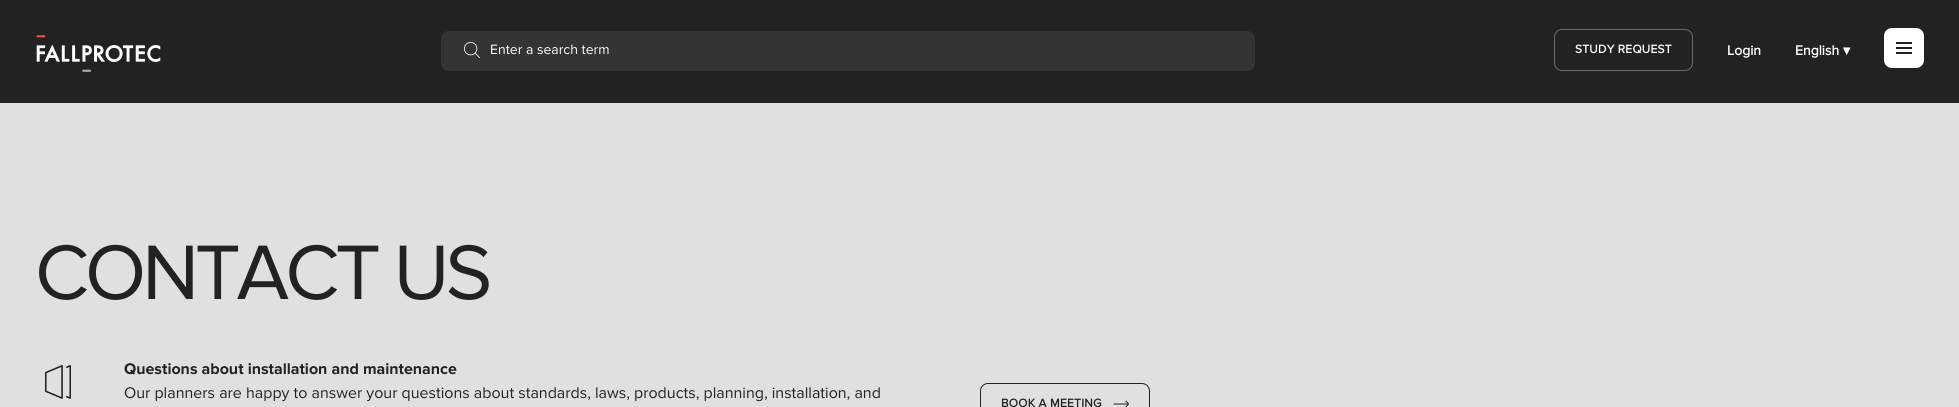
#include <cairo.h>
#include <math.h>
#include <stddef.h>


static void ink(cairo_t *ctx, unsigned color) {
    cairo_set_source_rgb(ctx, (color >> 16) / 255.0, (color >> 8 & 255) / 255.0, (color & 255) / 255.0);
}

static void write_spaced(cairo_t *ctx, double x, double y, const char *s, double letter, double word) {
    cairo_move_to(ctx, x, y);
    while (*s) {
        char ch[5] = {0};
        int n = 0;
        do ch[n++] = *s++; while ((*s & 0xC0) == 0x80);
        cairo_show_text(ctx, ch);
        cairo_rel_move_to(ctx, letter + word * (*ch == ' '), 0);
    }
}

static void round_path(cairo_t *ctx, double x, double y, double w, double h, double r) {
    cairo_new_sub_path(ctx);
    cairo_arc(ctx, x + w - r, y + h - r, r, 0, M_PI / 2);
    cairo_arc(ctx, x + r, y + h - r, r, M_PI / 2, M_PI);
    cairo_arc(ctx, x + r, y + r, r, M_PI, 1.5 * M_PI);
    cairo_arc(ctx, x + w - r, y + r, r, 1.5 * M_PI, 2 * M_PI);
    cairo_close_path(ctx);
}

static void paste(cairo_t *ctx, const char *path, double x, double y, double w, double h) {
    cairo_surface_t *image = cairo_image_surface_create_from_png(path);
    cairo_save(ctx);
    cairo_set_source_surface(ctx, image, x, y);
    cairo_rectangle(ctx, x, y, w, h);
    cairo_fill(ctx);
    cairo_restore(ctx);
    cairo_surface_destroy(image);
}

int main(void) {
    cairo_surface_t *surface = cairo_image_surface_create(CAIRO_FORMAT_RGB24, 1959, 407);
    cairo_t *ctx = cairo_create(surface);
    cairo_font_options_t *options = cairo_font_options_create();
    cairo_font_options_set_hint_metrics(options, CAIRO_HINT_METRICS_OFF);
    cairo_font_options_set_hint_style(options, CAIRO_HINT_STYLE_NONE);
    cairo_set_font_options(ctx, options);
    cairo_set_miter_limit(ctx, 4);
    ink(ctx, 0xE0E0E0);
    cairo_paint(ctx);
    ink(ctx, 0x222222);
    cairo_rectangle(ctx, 0, 0, 1959, 103);
    cairo_fill(ctx);
    paste(ctx, "media/1.png", 36, 35, 125, 37);
    ink(ctx, 0x343434);
    round_path(ctx, 441, 31, 814, 40, 8);
    cairo_fill(ctx);
    paste(ctx, "media/2.png", 464, 42, 16, 16);
    cairo_select_font_face(ctx, "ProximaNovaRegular", CAIRO_FONT_SLANT_NORMAL, CAIRO_FONT_WEIGHT_NORMAL);
    cairo_set_font_size(ctx, 14);
    ink(ctx, 0xFFFFFF);
    cairo_move_to(ctx, 490, 54);
    cairo_show_text(ctx, "Enter a search term");
    round_path(ctx, 1554.5, 29.5, 138, 41, 7.5);
    ink(ctx, 0x6A6A6A);
    cairo_set_line_width(ctx, 1);
    cairo_stroke(ctx);
    cairo_select_font_face(ctx, "ProximaNovaRegular", CAIRO_FONT_SLANT_NORMAL, CAIRO_FONT_WEIGHT_BOLD);
    cairo_set_font_size(ctx, 12);
    ink(ctx, 0xFFFFFF);
    write_spaced(ctx, 1575, 53, "STUDY REQUEST", 0.25, 0);
    cairo_set_font_size(ctx, 14);
    cairo_move_to(ctx, 1727, 55);
    cairo_show_text(ctx, "Login");
    cairo_move_to(ctx, 1795, 55);
    cairo_show_text(ctx, "English");
    cairo_select_font_face(ctx, "DejaVu Sans", CAIRO_FONT_SLANT_NORMAL, CAIRO_FONT_WEIGHT_BOLD);
    cairo_move_to(ctx, 1843, 55);
    cairo_show_text(ctx, "▾");
    round_path(ctx, 1884, 28, 40, 40, 8);
    cairo_fill(ctx);
    paste(ctx, "media/3.png", 1896, 42, 16, 12);
    cairo_select_font_face(ctx, "ProximaNovaRegular", CAIRO_FONT_SLANT_NORMAL, CAIRO_FONT_WEIGHT_NORMAL);
    cairo_set_font_size(ctx, 80);
    ink(ctx, 0x222222);
    write_spaced(ctx, 35, 299, "CONTACT US", -4, 0);
    paste(ctx, "media/4.png", 45, 365, 26, 34);
    cairo_select_font_face(ctx, "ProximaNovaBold", CAIRO_FONT_SLANT_NORMAL, CAIRO_FONT_WEIGHT_BOLD);
    cairo_set_font_size(ctx, 16);
    cairo_move_to(ctx, 124, 374);
    cairo_show_text(ctx, "Questions about installation and maintenance");
    cairo_select_font_face(ctx, "ProximaNovaRegular", CAIRO_FONT_SLANT_NORMAL, CAIRO_FONT_WEIGHT_NORMAL);
    cairo_move_to(ctx, 124, 398);
    cairo_show_text(ctx, "Our planners are happy to answer your questions about standards, laws, products, planning, installation, and");
    round_path(ctx, 980.5, 383.5, 169, 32, 7.5);
    cairo_stroke(ctx);
    cairo_select_font_face(ctx, "ProximaNovaRegular", CAIRO_FONT_SLANT_NORMAL, CAIRO_FONT_WEIGHT_BOLD);
    cairo_set_font_size(ctx, 12);
    write_spaced(ctx, 1001, 407, "BOOK A MEETING", 0.25, 0);
    paste(ctx, "media/5.png", 1113, 400, 16, 7);
    cairo_surface_write_to_png(surface, "image.png");
    cairo_font_options_destroy(options);
    cairo_destroy(ctx);
    cairo_surface_destroy(surface);
    return 0;
}
